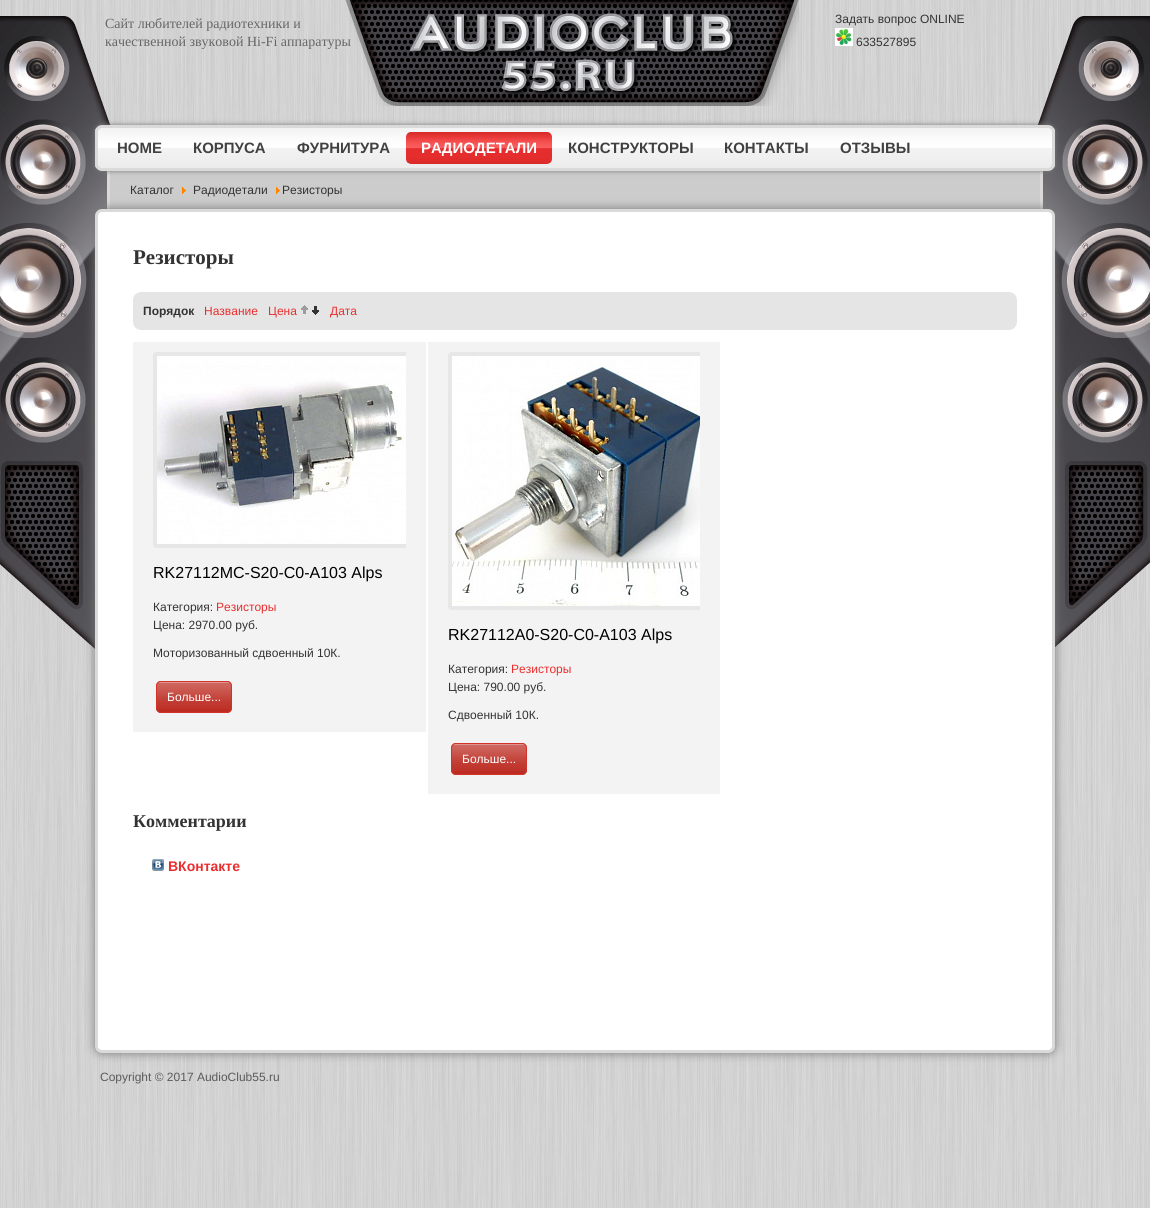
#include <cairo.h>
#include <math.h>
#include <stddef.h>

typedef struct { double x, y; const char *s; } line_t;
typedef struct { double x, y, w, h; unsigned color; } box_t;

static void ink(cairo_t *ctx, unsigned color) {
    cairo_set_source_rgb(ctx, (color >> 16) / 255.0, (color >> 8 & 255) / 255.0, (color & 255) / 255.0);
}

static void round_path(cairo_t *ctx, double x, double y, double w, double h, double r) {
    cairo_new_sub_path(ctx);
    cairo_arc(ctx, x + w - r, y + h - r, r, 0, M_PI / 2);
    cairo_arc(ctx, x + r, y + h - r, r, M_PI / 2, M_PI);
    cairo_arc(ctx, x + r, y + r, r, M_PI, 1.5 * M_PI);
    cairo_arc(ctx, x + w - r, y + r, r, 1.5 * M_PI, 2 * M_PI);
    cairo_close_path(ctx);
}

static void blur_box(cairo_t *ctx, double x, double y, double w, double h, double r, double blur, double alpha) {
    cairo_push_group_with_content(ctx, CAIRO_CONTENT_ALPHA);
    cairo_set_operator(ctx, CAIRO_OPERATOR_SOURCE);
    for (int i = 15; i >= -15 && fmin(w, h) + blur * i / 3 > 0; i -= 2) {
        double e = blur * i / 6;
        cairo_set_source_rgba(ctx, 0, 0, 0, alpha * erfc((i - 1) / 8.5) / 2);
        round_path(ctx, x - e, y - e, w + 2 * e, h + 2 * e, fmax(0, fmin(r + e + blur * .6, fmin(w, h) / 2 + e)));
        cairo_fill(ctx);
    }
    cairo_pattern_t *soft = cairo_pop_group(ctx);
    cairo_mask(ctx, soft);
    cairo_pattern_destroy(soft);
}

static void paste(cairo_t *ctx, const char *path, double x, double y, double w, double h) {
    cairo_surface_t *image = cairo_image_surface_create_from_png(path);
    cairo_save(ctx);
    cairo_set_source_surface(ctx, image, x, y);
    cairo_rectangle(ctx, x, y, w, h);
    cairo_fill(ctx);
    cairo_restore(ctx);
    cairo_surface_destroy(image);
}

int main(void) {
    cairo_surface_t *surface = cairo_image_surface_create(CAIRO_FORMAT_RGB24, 1150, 1208);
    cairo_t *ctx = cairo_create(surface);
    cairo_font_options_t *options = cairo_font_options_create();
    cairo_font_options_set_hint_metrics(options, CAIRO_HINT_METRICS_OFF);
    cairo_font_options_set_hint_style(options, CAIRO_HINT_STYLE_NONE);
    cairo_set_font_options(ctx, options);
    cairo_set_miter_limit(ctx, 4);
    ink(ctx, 0xFFFFFF);
    cairo_paint(ctx);
    paste(ctx, "media/1.png", 0, 0, 1150, 1208);
    paste(ctx, "media/2.png", 0, 16, 1150, 633);
    cairo_select_font_face(ctx, "Liberation Serif", CAIRO_FONT_SLANT_NORMAL, CAIRO_FONT_WEIGHT_NORMAL);
    cairo_set_font_size(ctx, 14);
    ink(ctx, 0x666666);
    cairo_move_to(ctx, 105, 28);
    cairo_show_text(ctx, "Сайт любителей радиотехники и");
    cairo_move_to(ctx, 105, 46);
    cairo_show_text(ctx, "качественной звуковой Hi-Fi аппаратуры");
    paste(ctx, "media/3.png", 345, 0, 454, 106);
    cairo_select_font_face(ctx, "Liberation Sans", CAIRO_FONT_SLANT_NORMAL, CAIRO_FONT_WEIGHT_NORMAL);
    cairo_set_font_size(ctx, 12);
    ink(ctx, 0x333333);
    cairo_move_to(ctx, 835, 23);
    cairo_show_text(ctx, "Задать вопрос ONLINE");
    paste(ctx, "media/4.png", 835, 28, 18, 18);
    cairo_move_to(ctx, 856, 46);
    cairo_show_text(ctx, "633527895");
    {
        static const box_t items[] = {
            {110, 171, 930, 38, 0xCCCCCC},
            {1040, 171, 3, 38, 0xDADADA},
            {107, 171, 3, 38, 0xDADADA},
        };
        for (size_t i = 0; i < sizeof items / sizeof *items; i++) {
            ink(ctx, items[i].color);
            cairo_rectangle(ctx, items[i].x, items[i].y, items[i].w, items[i].h);
            cairo_fill(ctx);
        }
    }
    ink(ctx, 0x777777);
    blur_box(ctx, 95, 125, 960, 46, 7, 2.5, 1);
    paste(ctx, "media/5.png", 95, 128, 960, 40);
    round_path(ctx, 96.5, 126.5, 957, 43, 5.5);
    ink(ctx, 0xDADADA);
    cairo_set_line_width(ctx, 3);
    cairo_stroke(ctx);
    cairo_select_font_face(ctx, "Liberation Sans", CAIRO_FONT_SLANT_NORMAL, CAIRO_FONT_WEIGHT_BOLD);
    cairo_set_font_size(ctx, 15);
    ink(ctx, 0x414141);
    {
        static const line_t items[] = {
            {117, 153, "HOME"},
            {193, 153, "КОРПУСА"},
            {297, 153, "ФУРНИТУРА"},
        };
        for (size_t i = 0; i < sizeof items / sizeof *items; i++) {
            cairo_move_to(ctx, items[i].x, items[i].y);
            cairo_show_text(ctx, items[i].s);
        }
    }
    paste(ctx, "media/6.png", 406, 132, 146, 32);
    ink(ctx, 0xFFFFFF);
    cairo_move_to(ctx, 421, 153);
    cairo_show_text(ctx, "РАДИОДЕТАЛИ");
    ink(ctx, 0x414141);
    {
        static const line_t items[] = {
            {568, 153, "КОНСТРУКТОРЫ"},
            {724, 153, "КОНТАКТЫ"},
            {840, 153, "ОТЗЫВЫ"},
        };
        for (size_t i = 0; i < sizeof items / sizeof *items; i++) {
            cairo_move_to(ctx, items[i].x, items[i].y);
            cairo_show_text(ctx, items[i].s);
        }
    }
    cairo_select_font_face(ctx, "Liberation Sans", CAIRO_FONT_SLANT_NORMAL, CAIRO_FONT_WEIGHT_NORMAL);
    cairo_set_font_size(ctx, 12);
    ink(ctx, 0x333333);
    cairo_move_to(ctx, 130, 194);
    cairo_show_text(ctx, "Каталог");
    paste(ctx, "media/7.png", 182, 187, 4, 7);
    cairo_move_to(ctx, 193, 194);
    cairo_show_text(ctx, "Радиодетали");
    paste(ctx, "media/7.png", 276, 187, 4, 7);
    cairo_move_to(ctx, 282, 194);
    cairo_show_text(ctx, "Резисторы");
    ink(ctx, 0x777777);
    blur_box(ctx, 95, 209, 960, 844, 7, 5, 1);
    ink(ctx, 0xFFFFFF);
    round_path(ctx, 96.5, 210.5, 957, 841, 5.5);
    cairo_fill_preserve(ctx);
    ink(ctx, 0xDADADA);
    cairo_stroke(ctx);
    cairo_select_font_face(ctx, "Liberation Serif", CAIRO_FONT_SLANT_NORMAL, CAIRO_FONT_WEIGHT_BOLD);
    cairo_set_font_size(ctx, 21);
    ink(ctx, 0x333333);
    cairo_move_to(ctx, 133, 264);
    cairo_show_text(ctx, "Резисторы");
    paste(ctx, "media/8.png", 133, 292, 884, 38);
    cairo_select_font_face(ctx, "Liberation Sans", CAIRO_FONT_SLANT_NORMAL, CAIRO_FONT_WEIGHT_BOLD);
    cairo_set_font_size(ctx, 12);
    cairo_move_to(ctx, 143, 315);
    cairo_show_text(ctx, "Порядок");
    cairo_select_font_face(ctx, "Liberation Sans", CAIRO_FONT_SLANT_NORMAL, CAIRO_FONT_WEIGHT_NORMAL);
    ink(ctx, 0xEA2E2E);
    cairo_move_to(ctx, 204, 315);
    cairo_show_text(ctx, "Название");
    cairo_move_to(ctx, 268, 315);
    cairo_show_text(ctx, "Цена");
    paste(ctx, "media/9.png", 301, 305, 18, 10);
    cairo_move_to(ctx, 330, 315);
    cairo_show_text(ctx, "Дата");
    ink(ctx, 0xF3F3F3);
    cairo_rectangle(ctx, 133, 342, 293, 390);
    cairo_fill(ctx);
    paste(ctx, "media/10.png", 153, 352, 253, 196);
    cairo_set_font_size(ctx, 16);
    ink(ctx, 0x000000);
    cairo_move_to(ctx, 153, 578);
    cairo_show_text(ctx, "RK27112MC-S20-C0-A103 Alps");
    cairo_set_font_size(ctx, 12);
    ink(ctx, 0x333333);
    cairo_move_to(ctx, 153, 611);
    cairo_show_text(ctx, "Категория:");
    ink(ctx, 0xEA2E2E);
    cairo_move_to(ctx, 216, 611);
    cairo_show_text(ctx, "Резисторы");
    ink(ctx, 0x333333);
    cairo_move_to(ctx, 153, 629);
    cairo_show_text(ctx, "Цена: 2970.00 руб.");
    cairo_move_to(ctx, 153, 657);
    cairo_show_text(ctx, "Моторизованный сдвоенный 10К.");
    ink(ctx, 0xBC2C22);
    round_path(ctx, 156, 681, 76, 32, 5);
    cairo_fill(ctx);
    paste(ctx, "media/11.png", 156, 682, 76, 27);
    round_path(ctx, 156.5, 681.5, 75, 31, 4.5);
    ink(ctx, 0xD23328);
    cairo_set_line_width(ctx, 1);
    cairo_stroke(ctx);
    ink(ctx, 0xFFFFFF);
    cairo_move_to(ctx, 167, 701);
    cairo_show_text(ctx, "Больше...");
    ink(ctx, 0xF3F3F3);
    cairo_rectangle(ctx, 428, 342, 292, 452);
    cairo_fill(ctx);
    paste(ctx, "media/12.png", 448, 352, 252, 258);
    cairo_set_font_size(ctx, 16);
    ink(ctx, 0x000000);
    cairo_move_to(ctx, 448, 640);
    cairo_show_text(ctx, "RK27112A0-S20-C0-A103 Alps");
    cairo_set_font_size(ctx, 12);
    ink(ctx, 0x333333);
    cairo_move_to(ctx, 448, 673);
    cairo_show_text(ctx, "Категория:");
    ink(ctx, 0xEA2E2E);
    cairo_move_to(ctx, 511, 673);
    cairo_show_text(ctx, "Резисторы");
    ink(ctx, 0x333333);
    cairo_move_to(ctx, 448, 691);
    cairo_show_text(ctx, "Цена: 790.00 руб.");
    cairo_move_to(ctx, 448, 719);
    cairo_show_text(ctx, "Сдвоенный 10К.");
    ink(ctx, 0xBC2C22);
    round_path(ctx, 451, 743, 76, 32, 5);
    cairo_fill(ctx);
    paste(ctx, "media/11.png", 451, 744, 76, 27);
    round_path(ctx, 451.5, 743.5, 75, 31, 4.5);
    ink(ctx, 0xD23328);
    cairo_stroke(ctx);
    ink(ctx, 0xFFFFFF);
    cairo_move_to(ctx, 462, 763);
    cairo_show_text(ctx, "Больше...");
    cairo_select_font_face(ctx, "Liberation Serif", CAIRO_FONT_SLANT_NORMAL, CAIRO_FONT_WEIGHT_BOLD);
    cairo_set_font_size(ctx, 18);
    ink(ctx, 0x333333);
    cairo_move_to(ctx, 133, 827);
    cairo_show_text(ctx, "Комментарии");
    paste(ctx, "media/13.png", 152, 859, 12, 12);
    cairo_select_font_face(ctx, "Liberation Sans", CAIRO_FONT_SLANT_NORMAL, CAIRO_FONT_WEIGHT_BOLD);
    cairo_set_font_size(ctx, 14);
    ink(ctx, 0xEA2E2E);
    cairo_move_to(ctx, 168, 871);
    cairo_show_text(ctx, "ВКонтакте");
    cairo_select_font_face(ctx, "Liberation Sans", CAIRO_FONT_SLANT_NORMAL, CAIRO_FONT_WEIGHT_NORMAL);
    cairo_set_font_size(ctx, 12);
    ink(ctx, 0x5B5B5B);
    cairo_move_to(ctx, 100, 1081);
    cairo_show_text(ctx, "Copyright © 2017 AudioClub55.ru");
    cairo_surface_write_to_png(surface, "image.png");
    cairo_font_options_destroy(options);
    cairo_destroy(ctx);
    cairo_surface_destroy(surface);
    return 0;
}
